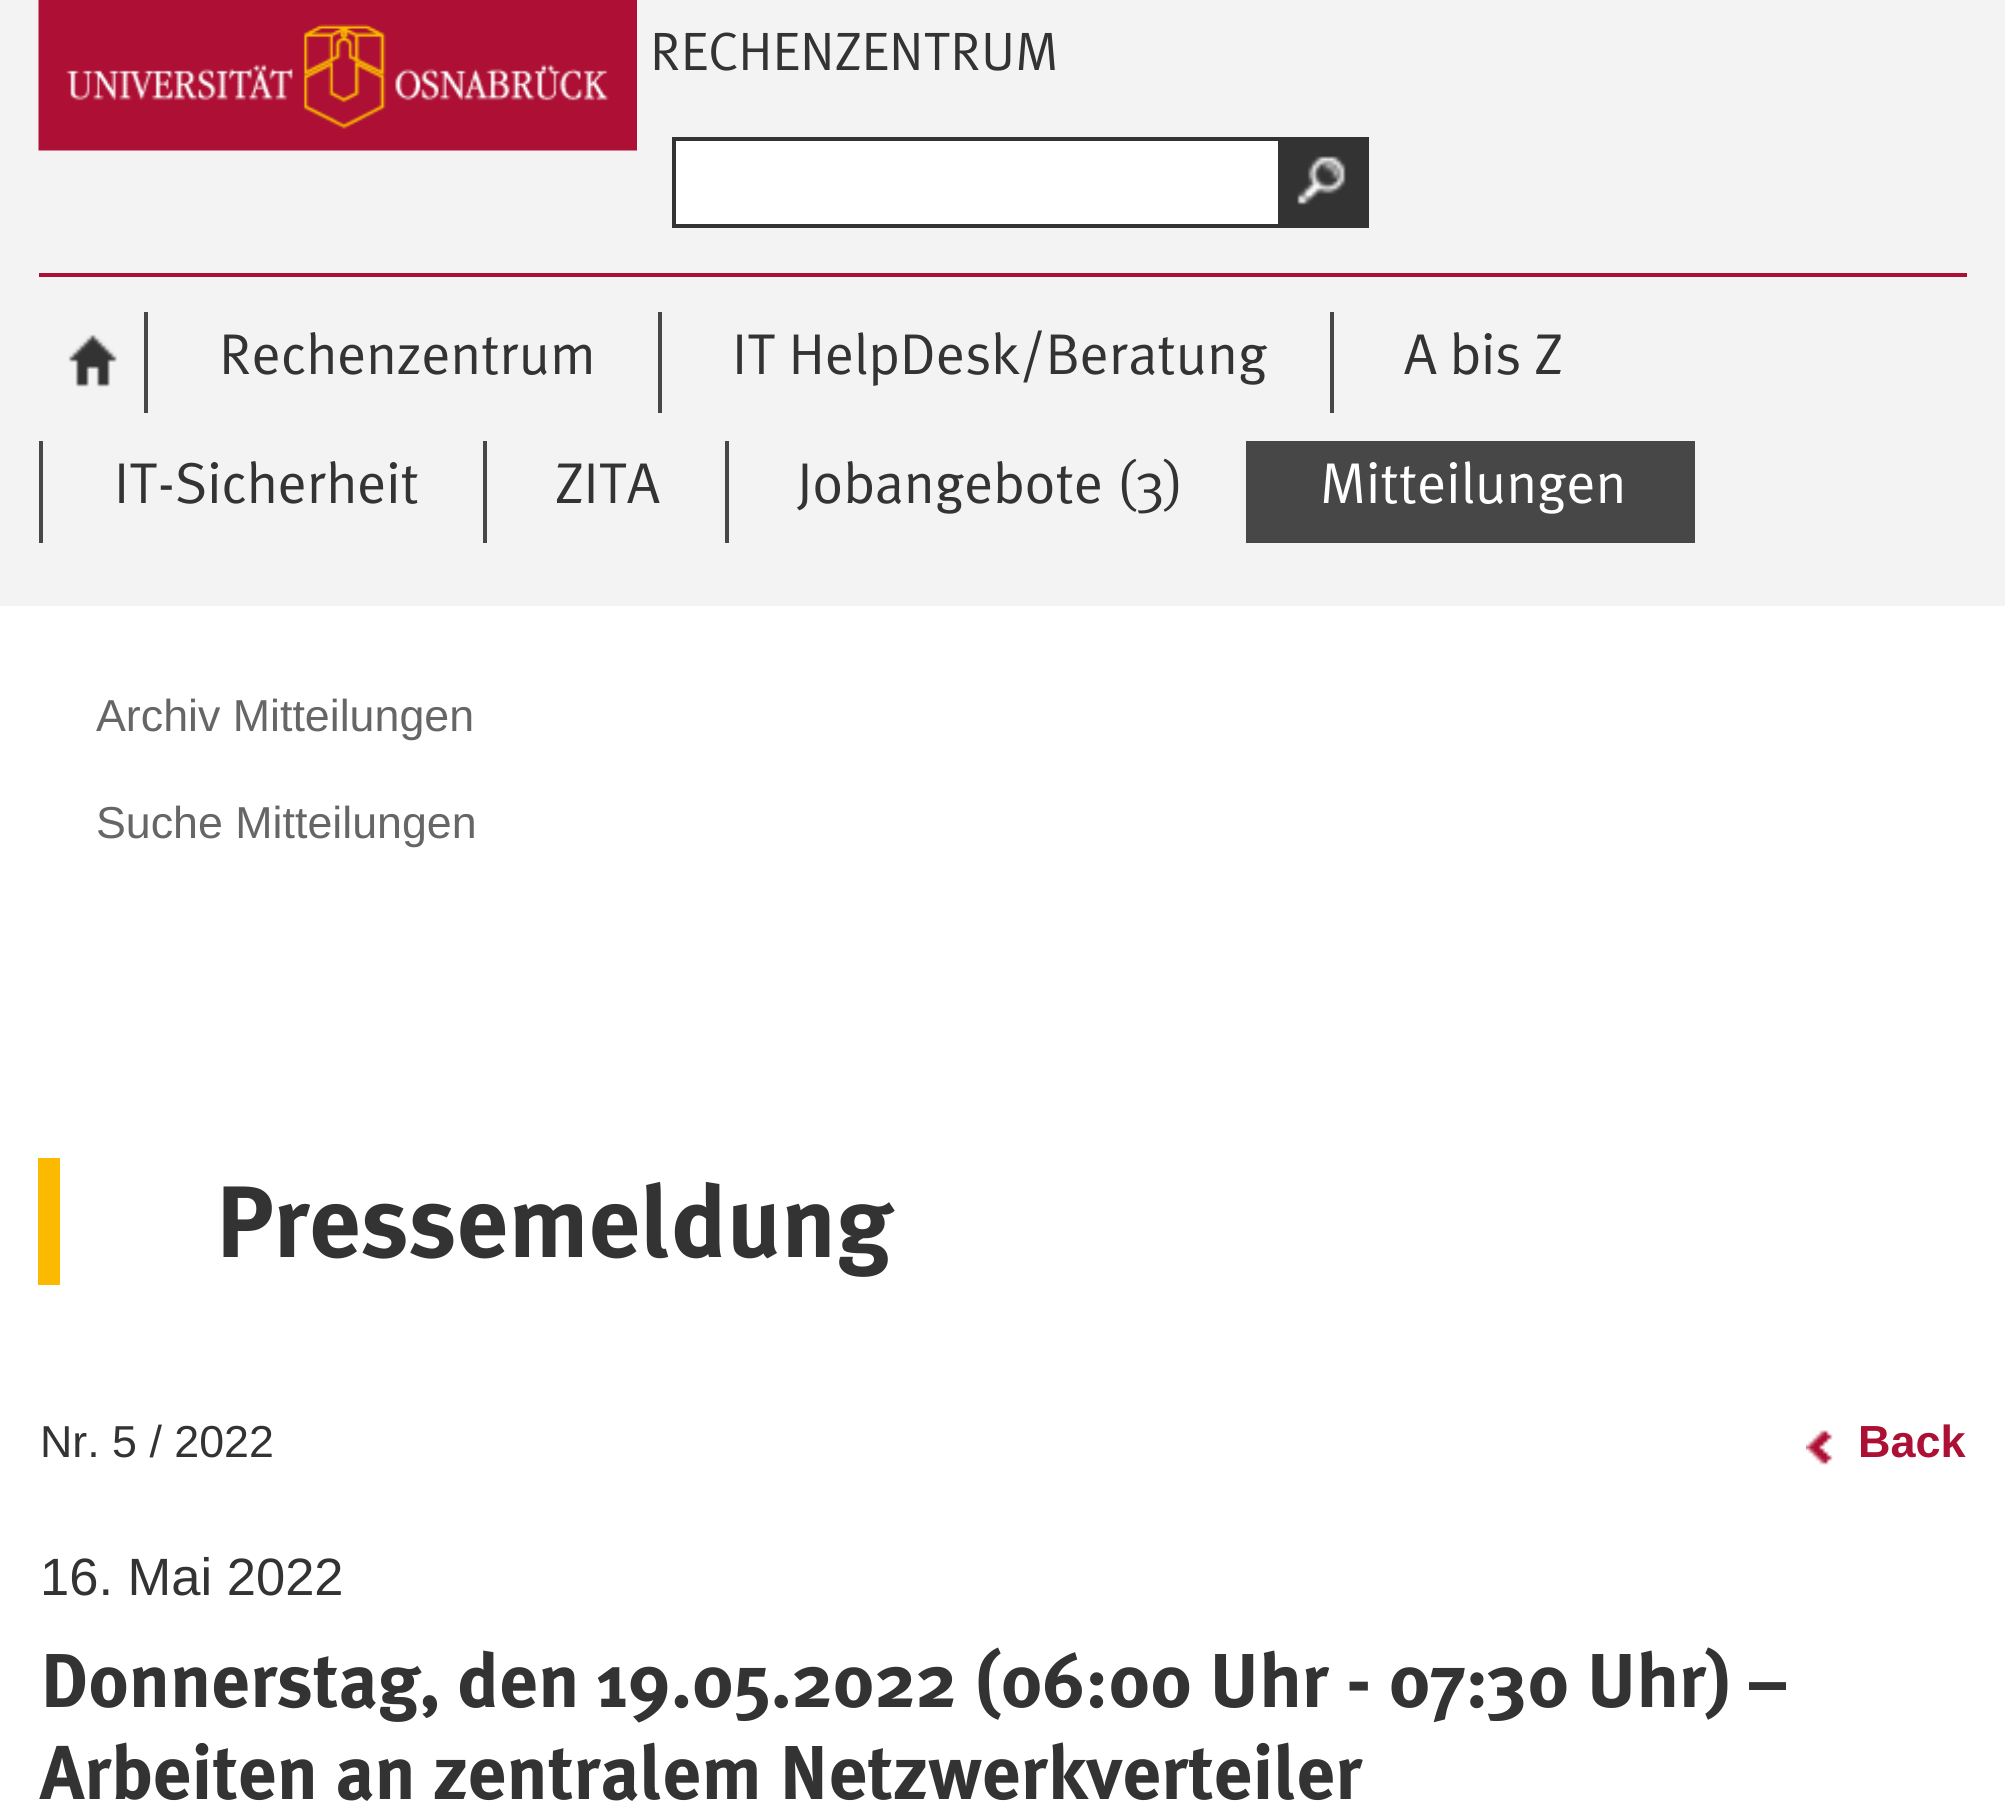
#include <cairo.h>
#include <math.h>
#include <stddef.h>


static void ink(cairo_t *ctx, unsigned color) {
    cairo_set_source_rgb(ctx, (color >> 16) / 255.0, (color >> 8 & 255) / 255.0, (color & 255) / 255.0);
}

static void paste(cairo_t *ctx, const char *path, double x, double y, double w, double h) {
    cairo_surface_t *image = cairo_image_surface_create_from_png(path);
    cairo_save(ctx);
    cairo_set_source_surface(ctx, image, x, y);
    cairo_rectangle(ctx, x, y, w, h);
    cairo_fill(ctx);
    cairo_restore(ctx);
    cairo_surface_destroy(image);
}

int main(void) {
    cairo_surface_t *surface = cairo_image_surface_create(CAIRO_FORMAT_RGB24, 2005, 1810);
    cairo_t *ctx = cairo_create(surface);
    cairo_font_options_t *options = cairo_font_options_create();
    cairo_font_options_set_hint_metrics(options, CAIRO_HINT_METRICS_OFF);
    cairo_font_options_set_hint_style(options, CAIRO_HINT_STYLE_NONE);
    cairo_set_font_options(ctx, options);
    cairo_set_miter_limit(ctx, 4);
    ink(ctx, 0xFFFFFF);
    cairo_paint(ctx);
    ink(ctx, 0xF3F3F3);
    cairo_rectangle(ctx, 0, 0, 2005, 606);
    cairo_fill(ctx);
    ink(ctx, 0xAC1035);
    cairo_rectangle(ctx, 39, 273, 1928, 4);
    cairo_fill(ctx);
    paste(ctx, "media/1.png", 38, 0, 599, 151);
    cairo_select_font_face(ctx, "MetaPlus", CAIRO_FONT_SLANT_NORMAL, CAIRO_FONT_WEIGHT_NORMAL);
    cairo_set_font_size(ctx, 54);
    ink(ctx, 0x333333);
    cairo_move_to(ctx, 650, 70);
    cairo_show_text(ctx, "RECHENZENTRUM");
    ink(ctx, 0xFFFFFF);
    cairo_rectangle(ctx, 676, 141, 602, 83);
    cairo_fill(ctx);
    cairo_rectangle(ctx, 674, 139, 637, 87);
    ink(ctx, 0x333333);
    cairo_set_line_width(ctx, 4);
    cairo_stroke(ctx);
    cairo_rectangle(ctx, 1280, 139, 87, 87);
    cairo_stroke(ctx);
    cairo_rectangle(ctx, 1282, 141, 83, 83);
    cairo_fill(ctx);
    paste(ctx, "media/2.png", 1297, 156, 49, 49);
    paste(ctx, "media/3.png", 68, 334, 49, 53);
    ink(ctx, 0x474747);
    cairo_rectangle(ctx, 144, 312, 4, 101);
    cairo_fill(ctx);
    cairo_set_font_size(ctx, 57.5);
    ink(ctx, 0x333333);
    cairo_move_to(ctx, 219, 374);
    cairo_show_text(ctx, "Rechenzentrum");
    ink(ctx, 0x474747);
    cairo_rectangle(ctx, 658, 312, 4, 101);
    cairo_fill(ctx);
    ink(ctx, 0x333333);
    cairo_move_to(ctx, 732, 374);
    cairo_show_text(ctx, "IT HelpDesk/Beratung");
    ink(ctx, 0x474747);
    cairo_rectangle(ctx, 1330, 312, 4, 101);
    cairo_fill(ctx);
    ink(ctx, 0x333333);
    cairo_move_to(ctx, 1404, 374);
    cairo_show_text(ctx, "A bis Z");
    ink(ctx, 0x474747);
    cairo_rectangle(ctx, 39, 441, 4, 102);
    cairo_fill(ctx);
    ink(ctx, 0x333333);
    cairo_move_to(ctx, 114, 503);
    cairo_show_text(ctx, "IT-Sicherheit");
    ink(ctx, 0x474747);
    cairo_rectangle(ctx, 483, 441, 4, 102);
    cairo_fill(ctx);
    ink(ctx, 0x333333);
    cairo_move_to(ctx, 555, 503);
    cairo_show_text(ctx, "ZITA");
    ink(ctx, 0x474747);
    cairo_rectangle(ctx, 725, 441, 4, 102);
    cairo_fill(ctx);
    ink(ctx, 0x333333);
    cairo_move_to(ctx, 797, 503);
    cairo_show_text(ctx, "Jobangebote (3)");
    ink(ctx, 0x474747);
    cairo_rectangle(ctx, 1246, 441, 445, 102);
    cairo_fill(ctx);
    cairo_rectangle(ctx, 1691, 441, 4, 102);
    cairo_fill(ctx);
    ink(ctx, 0xFFFFFF);
    cairo_move_to(ctx, 1320, 503);
    cairo_show_text(ctx, "Mitteilungen");
    cairo_select_font_face(ctx, "Liberation Sans", CAIRO_FONT_SLANT_NORMAL, CAIRO_FONT_WEIGHT_NORMAL);
    cairo_set_font_size(ctx, 44.75);
    ink(ctx, 0x666666);
    cairo_move_to(ctx, 96, 731);
    cairo_show_text(ctx, "Archiv Mitteilungen");
    cairo_move_to(ctx, 96, 838);
    cairo_show_text(ctx, "Suche Mitteilungen");
    ink(ctx, 0xFBB900);
    cairo_rectangle(ctx, 38, 1158, 22, 127);
    cairo_fill(ctx);
    cairo_select_font_face(ctx, "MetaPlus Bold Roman", CAIRO_FONT_SLANT_NORMAL, CAIRO_FONT_WEIGHT_BOLD);
    cairo_set_font_size(ctx, 101.5);
    ink(ctx, 0x333333);
    cairo_move_to(ctx, 215, 1257);
    cairo_show_text(ctx, "Pressemeldung");
    cairo_select_font_face(ctx, "Liberation Sans", CAIRO_FONT_SLANT_NORMAL, CAIRO_FONT_WEIGHT_NORMAL);
    cairo_set_font_size(ctx, 44.75);
    cairo_move_to(ctx, 40, 1457);
    cairo_show_text(ctx, "Nr. 5 / 2022");
    paste(ctx, "media/4.png", 1806, 1430, 27, 35);
    cairo_select_font_face(ctx, "Liberation Sans", CAIRO_FONT_SLANT_NORMAL, CAIRO_FONT_WEIGHT_BOLD);
    cairo_set_font_size(ctx, 45);
    ink(ctx, 0xAC1035);
    cairo_move_to(ctx, 1858, 1457);
    cairo_show_text(ctx, "Back");
    cairo_select_font_face(ctx, "Liberation Sans", CAIRO_FONT_SLANT_NORMAL, CAIRO_FONT_WEIGHT_NORMAL);
    cairo_set_font_size(ctx, 52.5);
    ink(ctx, 0x333333);
    cairo_move_to(ctx, 40, 1595);
    cairo_show_text(ctx, "16. Mai 2022");
    cairo_select_font_face(ctx, "MetaPlus Bold Roman", CAIRO_FONT_SLANT_NORMAL, CAIRO_FONT_WEIGHT_BOLD);
    cairo_set_font_size(ctx, 76.25);
    cairo_move_to(ctx, 40, 1707);
    cairo_show_text(ctx, "Donnerstag, den 19.05.2022 (06:00 Uhr - 07:30 Uhr) –");
    cairo_move_to(ctx, 40, 1799);
    cairo_show_text(ctx, "Arbeiten an zentralem Netzwerkverteiler");
    cairo_surface_write_to_png(surface, "image.png");
    cairo_font_options_destroy(options);
    cairo_destroy(ctx);
    cairo_surface_destroy(surface);
    return 0;
}
